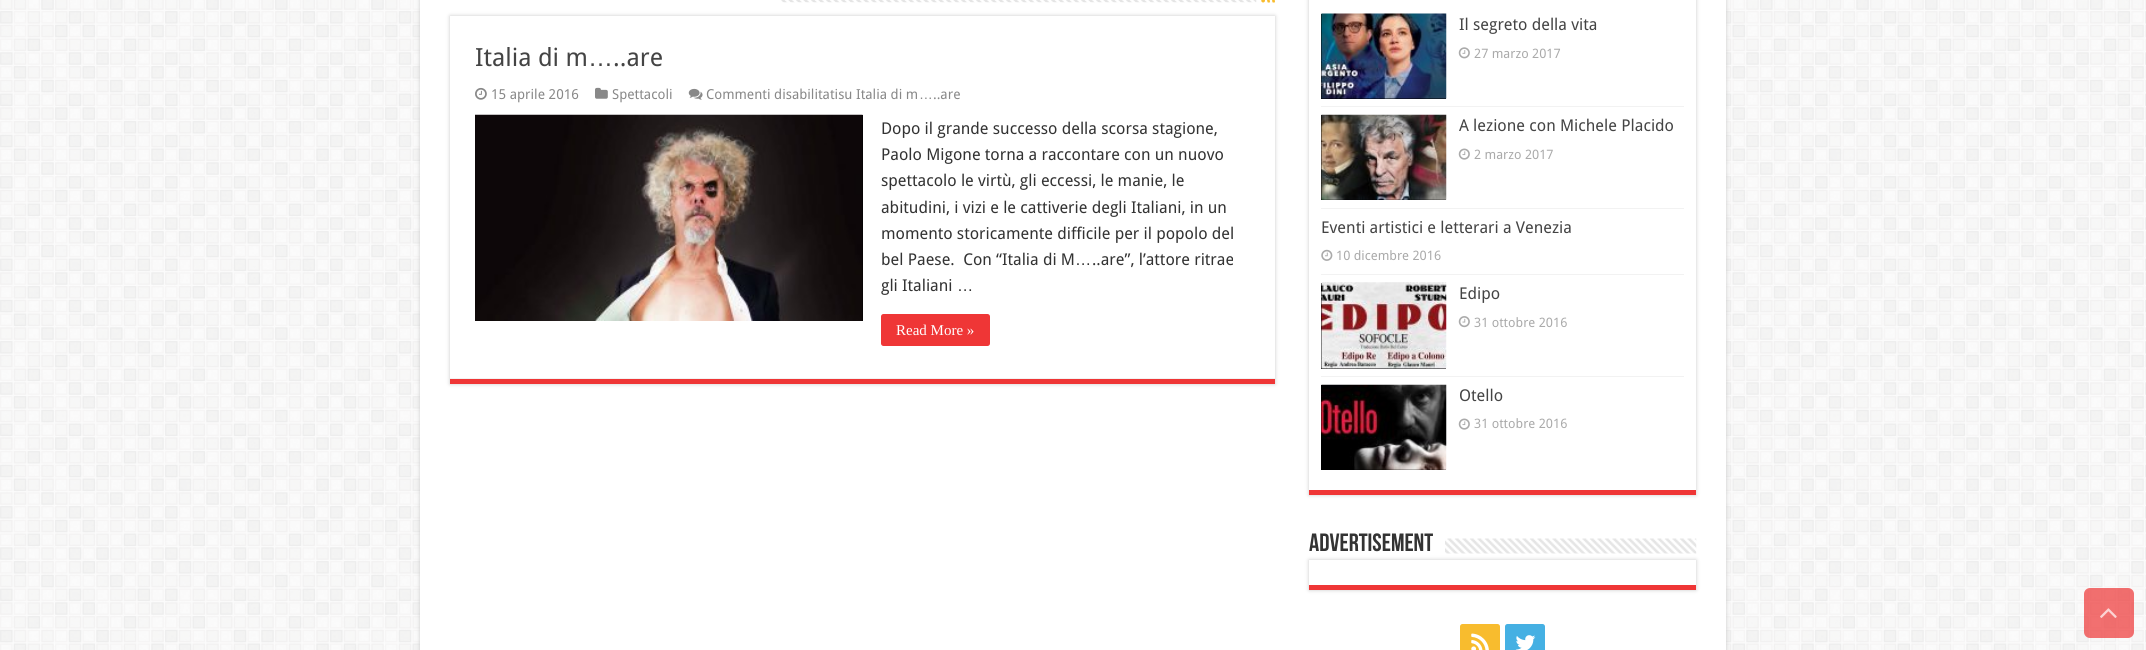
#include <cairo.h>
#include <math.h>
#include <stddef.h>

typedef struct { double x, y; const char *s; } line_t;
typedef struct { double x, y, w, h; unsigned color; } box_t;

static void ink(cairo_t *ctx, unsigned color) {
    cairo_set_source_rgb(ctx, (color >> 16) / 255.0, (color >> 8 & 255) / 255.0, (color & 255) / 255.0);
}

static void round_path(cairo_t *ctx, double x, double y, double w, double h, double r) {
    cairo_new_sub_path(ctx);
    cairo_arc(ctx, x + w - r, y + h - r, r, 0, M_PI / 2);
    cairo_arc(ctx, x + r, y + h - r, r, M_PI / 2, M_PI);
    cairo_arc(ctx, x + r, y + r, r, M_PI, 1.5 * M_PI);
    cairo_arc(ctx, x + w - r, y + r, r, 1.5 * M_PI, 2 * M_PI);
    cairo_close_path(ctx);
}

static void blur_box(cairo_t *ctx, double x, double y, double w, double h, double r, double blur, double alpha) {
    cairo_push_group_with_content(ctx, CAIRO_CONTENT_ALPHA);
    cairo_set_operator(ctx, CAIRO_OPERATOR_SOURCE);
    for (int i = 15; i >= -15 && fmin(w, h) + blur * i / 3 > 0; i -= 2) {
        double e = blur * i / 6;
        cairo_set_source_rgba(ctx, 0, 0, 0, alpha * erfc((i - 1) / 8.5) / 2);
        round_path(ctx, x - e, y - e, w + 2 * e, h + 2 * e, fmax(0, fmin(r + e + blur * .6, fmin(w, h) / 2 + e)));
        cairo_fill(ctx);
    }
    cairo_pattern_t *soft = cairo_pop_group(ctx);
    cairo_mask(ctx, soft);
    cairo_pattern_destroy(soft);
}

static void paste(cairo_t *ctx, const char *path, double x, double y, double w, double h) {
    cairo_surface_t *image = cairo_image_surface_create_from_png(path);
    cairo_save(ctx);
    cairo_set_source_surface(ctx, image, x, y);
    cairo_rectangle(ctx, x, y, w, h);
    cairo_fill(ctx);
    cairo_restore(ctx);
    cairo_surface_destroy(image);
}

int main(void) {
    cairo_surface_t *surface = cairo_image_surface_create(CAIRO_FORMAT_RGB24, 2146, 650);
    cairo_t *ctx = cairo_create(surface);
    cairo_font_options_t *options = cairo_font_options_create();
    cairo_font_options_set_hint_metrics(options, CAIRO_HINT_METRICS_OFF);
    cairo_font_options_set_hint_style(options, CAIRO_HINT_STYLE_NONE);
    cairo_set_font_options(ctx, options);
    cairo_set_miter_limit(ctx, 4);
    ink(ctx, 0xFFFFFF);
    cairo_paint(ctx);
    paste(ctx, "media/1.png", 0, 0, 2146, 650);
    ink(ctx, 0xCACACA);
    blur_box(ctx, 420, -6, 1306, 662, 0, 2, 1);
    ink(ctx, 0xFFFFFF);
    cairo_rectangle(ctx, 420, 0, 1306, 650);
    cairo_fill(ctx);
    paste(ctx, "media/2.png", 781, 0, 476, 3);
    paste(ctx, "media/3.png", 1261, 0, 14, 3);
    ink(ctx, 0xCACACA);
    blur_box(ctx, 450, 16, 825, 368, 0, 2, 1);
    {
        static const box_t items[] = {
            {450, 16, 825, 362, 0xFFFFFF},
            {450, 379, 825, 5, 0xEF3636},
            {450, 378, 825, 1, 0xF2F2F2},
        };
        for (size_t i = 0; i < sizeof items / sizeof *items; i++) {
            ink(ctx, items[i].color);
            cairo_rectangle(ctx, items[i].x, items[i].y, items[i].w, items[i].h);
            cairo_fill(ctx);
        }
    }
    cairo_select_font_face(ctx, "Droid Sans", CAIRO_FONT_SLANT_NORMAL, CAIRO_FONT_WEIGHT_NORMAL);
    cairo_set_font_size(ctx, 25);
    ink(ctx, 0x444444);
    cairo_move_to(ctx, 475, 66);
    cairo_show_text(ctx, "Italia di m");
    cairo_select_font_face(ctx, "Liberation Sans", CAIRO_FONT_SLANT_NORMAL, CAIRO_FONT_WEIGHT_NORMAL);
    cairo_move_to(ctx, 588, 66);
    cairo_show_text(ctx, "…");
    cairo_select_font_face(ctx, "Droid Sans", CAIRO_FONT_SLANT_NORMAL, CAIRO_FONT_WEIGHT_NORMAL);
    cairo_move_to(ctx, 613, 66);
    cairo_show_text(ctx, "..are");
    paste(ctx, "media/4.png", 475, 87, 12, 13);
    cairo_set_font_size(ctx, 13.75);
    ink(ctx, 0x888888);
    cairo_move_to(ctx, 491, 99);
    cairo_show_text(ctx, "15 aprile 2016");
    paste(ctx, "media/5.png", 595, 87, 13, 12);
    cairo_move_to(ctx, 612, 99);
    cairo_show_text(ctx, "Spettacoli");
    paste(ctx, "media/6.png", 688, 88, 15, 12);
    cairo_move_to(ctx, 706, 99);
    cairo_show_text(ctx, "Commenti disabilitatisu Italia di m");
    cairo_select_font_face(ctx, "Liberation Sans", CAIRO_FONT_SLANT_NORMAL, CAIRO_FONT_WEIGHT_NORMAL);
    cairo_move_to(ctx, 919, 99);
    cairo_show_text(ctx, "…");
    cairo_select_font_face(ctx, "Droid Sans", CAIRO_FONT_SLANT_NORMAL, CAIRO_FONT_WEIGHT_NORMAL);
    cairo_move_to(ctx, 933, 99);
    cairo_show_text(ctx, "..are");
    ink(ctx, 0x000000);
    cairo_rectangle(ctx, 862, 115, 1, 206);
    cairo_fill(ctx);
    paste(ctx, "media/7.png", 475, 114, 388, 207);
    cairo_set_font_size(ctx, 16.25);
    ink(ctx, 0x333333);
    {
        static const line_t items[] = {
            {881, 134, "Dopo il grande successo della scorsa stagione,"},
            {881, 160, "Paolo Migone torna a raccontare con un nuovo"},
            {881, 186, "spettacolo le virtù, gli eccessi, le manie, le"},
            {881, 213, "abitudini, i vizi e le cattiverie degli Italiani, in un"},
            {881, 239, "momento storicamente difficile per il popolo del"},
            {881, 265, "bel Paese.  Con “Italia di M"},
        };
        for (size_t i = 0; i < sizeof items / sizeof *items; i++) {
            cairo_move_to(ctx, items[i].x, items[i].y);
            cairo_show_text(ctx, items[i].s);
        }
    }
    cairo_select_font_face(ctx, "Liberation Sans", CAIRO_FONT_SLANT_NORMAL, CAIRO_FONT_WEIGHT_NORMAL);
    cairo_move_to(ctx, 1075, 265);
    cairo_show_text(ctx, "…");
    cairo_select_font_face(ctx, "Droid Sans", CAIRO_FONT_SLANT_NORMAL, CAIRO_FONT_WEIGHT_NORMAL);
    cairo_move_to(ctx, 1092, 265);
    cairo_show_text(ctx, "..are”, l’attore ritrae");
    cairo_move_to(ctx, 881, 291);
    cairo_show_text(ctx, "gli Italiani");
    cairo_select_font_face(ctx, "Liberation Sans", CAIRO_FONT_SLANT_NORMAL, CAIRO_FONT_WEIGHT_NORMAL);
    cairo_move_to(ctx, 957, 291);
    cairo_show_text(ctx, "…");
    ink(ctx, 0xEF3636);
    round_path(ctx, 881, 314, 109, 32, 2.5);
    cairo_fill(ctx);
    cairo_select_font_face(ctx, "Liberation Serif", CAIRO_FONT_SLANT_NORMAL, CAIRO_FONT_WEIGHT_NORMAL);
    cairo_set_font_size(ctx, 15);
    ink(ctx, 0xFFFFFF);
    cairo_move_to(ctx, 896, 335);
    cairo_show_text(ctx, "Read More »");
    cairo_save(ctx);
    cairo_set_fill_rule(ctx, CAIRO_FILL_RULE_EVEN_ODD);
    cairo_new_path(ctx);
    cairo_move_to(ctx, 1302, 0);
    cairo_line_to(ctx, 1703, 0);
    cairo_line_to(ctx, 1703, 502);
    cairo_line_to(ctx, 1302, 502);
    cairo_close_path(ctx);
    cairo_move_to(ctx, 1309, -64);
    cairo_line_to(ctx, 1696, -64);
    cairo_line_to(ctx, 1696, 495);
    cairo_line_to(ctx, 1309, 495);
    cairo_close_path(ctx);
    cairo_clip(ctx);
    ink(ctx, 0xCACACA);
    blur_box(ctx, 1309, -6, 387, 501, 0, 2, 1);
    cairo_restore(ctx);
    {
        static const box_t items[] = {
            {1309, 490, 387, 5, 0xEF3636},
            {1321, 106, 363, 1, 0xF2F2F2},
            {1321, 14, 125, 85, 0x000000},
        };
        for (size_t i = 0; i < sizeof items / sizeof *items; i++) {
            ink(ctx, items[i].color);
            cairo_rectangle(ctx, items[i].x, items[i].y, items[i].w, items[i].h);
            cairo_fill(ctx);
        }
    }
    paste(ctx, "media/8.png", 1321, 13, 126, 86);
    cairo_select_font_face(ctx, "Droid Sans", CAIRO_FONT_SLANT_NORMAL, CAIRO_FONT_WEIGHT_NORMAL);
    cairo_set_font_size(ctx, 16.25);
    ink(ctx, 0x444444);
    cairo_move_to(ctx, 1459, 30);
    cairo_show_text(ctx, "Il segreto della vita");
    paste(ctx, "media/9.png", 1458, 47, 12, 12);
    cairo_set_font_size(ctx, 13);
    ink(ctx, 0xAAAAAA);
    cairo_move_to(ctx, 1474, 58);
    cairo_show_text(ctx, "27 marzo 2017");
    ink(ctx, 0xF2F2F2);
    cairo_rectangle(ctx, 1321, 208, 363, 1);
    cairo_fill(ctx);
    ink(ctx, 0x000000);
    cairo_rectangle(ctx, 1321, 115, 125, 85);
    cairo_fill(ctx);
    paste(ctx, "media/10.png", 1321, 114, 126, 86);
    cairo_set_font_size(ctx, 16.25);
    ink(ctx, 0x444444);
    cairo_move_to(ctx, 1459, 131);
    cairo_show_text(ctx, "A lezione con Michele Placido");
    paste(ctx, "media/11.png", 1458, 148, 12, 12);
    cairo_set_font_size(ctx, 13);
    ink(ctx, 0xAAAAAA);
    cairo_move_to(ctx, 1474, 159);
    cairo_show_text(ctx, "2 marzo 2017");
    ink(ctx, 0xF2F2F2);
    cairo_rectangle(ctx, 1321, 274, 363, 1);
    cairo_fill(ctx);
    cairo_set_font_size(ctx, 16.25);
    ink(ctx, 0x444444);
    cairo_move_to(ctx, 1321, 233);
    cairo_show_text(ctx, "Eventi artistici e letterari a Venezia");
    paste(ctx, "media/12.png", 1321, 249, 12, 12);
    cairo_set_font_size(ctx, 13);
    ink(ctx, 0xAAAAAA);
    cairo_move_to(ctx, 1336, 260);
    cairo_show_text(ctx, "10 dicembre 2016");
    ink(ctx, 0xF2F2F2);
    cairo_rectangle(ctx, 1321, 376, 363, 1);
    cairo_fill(ctx);
    ink(ctx, 0x000000);
    cairo_rectangle(ctx, 1321, 283, 125, 86);
    cairo_fill(ctx);
    paste(ctx, "media/13.png", 1321, 282, 126, 87);
    cairo_set_font_size(ctx, 16.25);
    ink(ctx, 0x444444);
    cairo_move_to(ctx, 1459, 299);
    cairo_show_text(ctx, "Edipo");
    paste(ctx, "media/14.png", 1458, 316, 12, 12);
    cairo_set_font_size(ctx, 13);
    ink(ctx, 0xAAAAAA);
    cairo_move_to(ctx, 1474, 327);
    cairo_show_text(ctx, "31 ottobre 2016");
    ink(ctx, 0x000000);
    cairo_rectangle(ctx, 1321, 385, 125, 85);
    cairo_fill(ctx);
    paste(ctx, "media/15.png", 1321, 384, 126, 86);
    cairo_set_font_size(ctx, 16.25);
    ink(ctx, 0x444444);
    cairo_move_to(ctx, 1459, 401);
    cairo_show_text(ctx, "Otello");
    paste(ctx, "media/11.png", 1458, 418, 12, 12);
    cairo_set_font_size(ctx, 13);
    ink(ctx, 0xAAAAAA);
    cairo_move_to(ctx, 1474, 428);
    cairo_show_text(ctx, "31 ottobre 2016");
    cairo_select_font_face(ctx, "Bebas Neue", CAIRO_FONT_SLANT_NORMAL, CAIRO_FONT_WEIGHT_BOLD);
    cairo_set_font_size(ctx, 25);
    ink(ctx, 0x333333);
    cairo_move_to(ctx, 1309, 551);
    cairo_show_text(ctx, "Advertisement");
    cairo_save(ctx);
    cairo_set_fill_rule(ctx, CAIRO_FILL_RULE_EVEN_ODD);
    cairo_new_path(ctx);
    cairo_move_to(ctx, 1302, 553);
    cairo_line_to(ctx, 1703, 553);
    cairo_line_to(ctx, 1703, 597);
    cairo_line_to(ctx, 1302, 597);
    cairo_close_path(ctx);
    cairo_move_to(ctx, 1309, 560);
    cairo_line_to(ctx, 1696, 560);
    cairo_line_to(ctx, 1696, 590);
    cairo_line_to(ctx, 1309, 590);
    cairo_close_path(ctx);
    cairo_clip(ctx);
    ink(ctx, 0xCACACA);
    blur_box(ctx, 1309, 560, 387, 30, 0, 2, 1);
    cairo_restore(ctx);
    paste(ctx, "media/16.png", 1445, 538, 252, 16);
    ink(ctx, 0xEF3636);
    cairo_rectangle(ctx, 1309, 585, 387, 5);
    cairo_fill(ctx);
    ink(ctx, 0xF8BC2E);
    round_path(ctx, 1460, 624, 40, 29, 2.5);
    cairo_fill(ctx);
    paste(ctx, "media/17.png", 1471, 633, 18, 17);
    ink(ctx, 0x45B0E3);
    round_path(ctx, 1505, 624, 40, 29, 2.5);
    cairo_fill(ctx);
    paste(ctx, "media/18.png", 1515, 635, 21, 15);
    cairo_set_source_rgba(ctx, 0.937, 0.212, 0.212, 0.7);
    round_path(ctx, 2084, 588, 50, 50, 6);
    cairo_fill(ctx);
    paste(ctx, "media/19.png", 2100, 608, 17, 10);
    cairo_surface_write_to_png(surface, "image.png");
    cairo_font_options_destroy(options);
    cairo_destroy(ctx);
    cairo_surface_destroy(surface);
    return 0;
}
